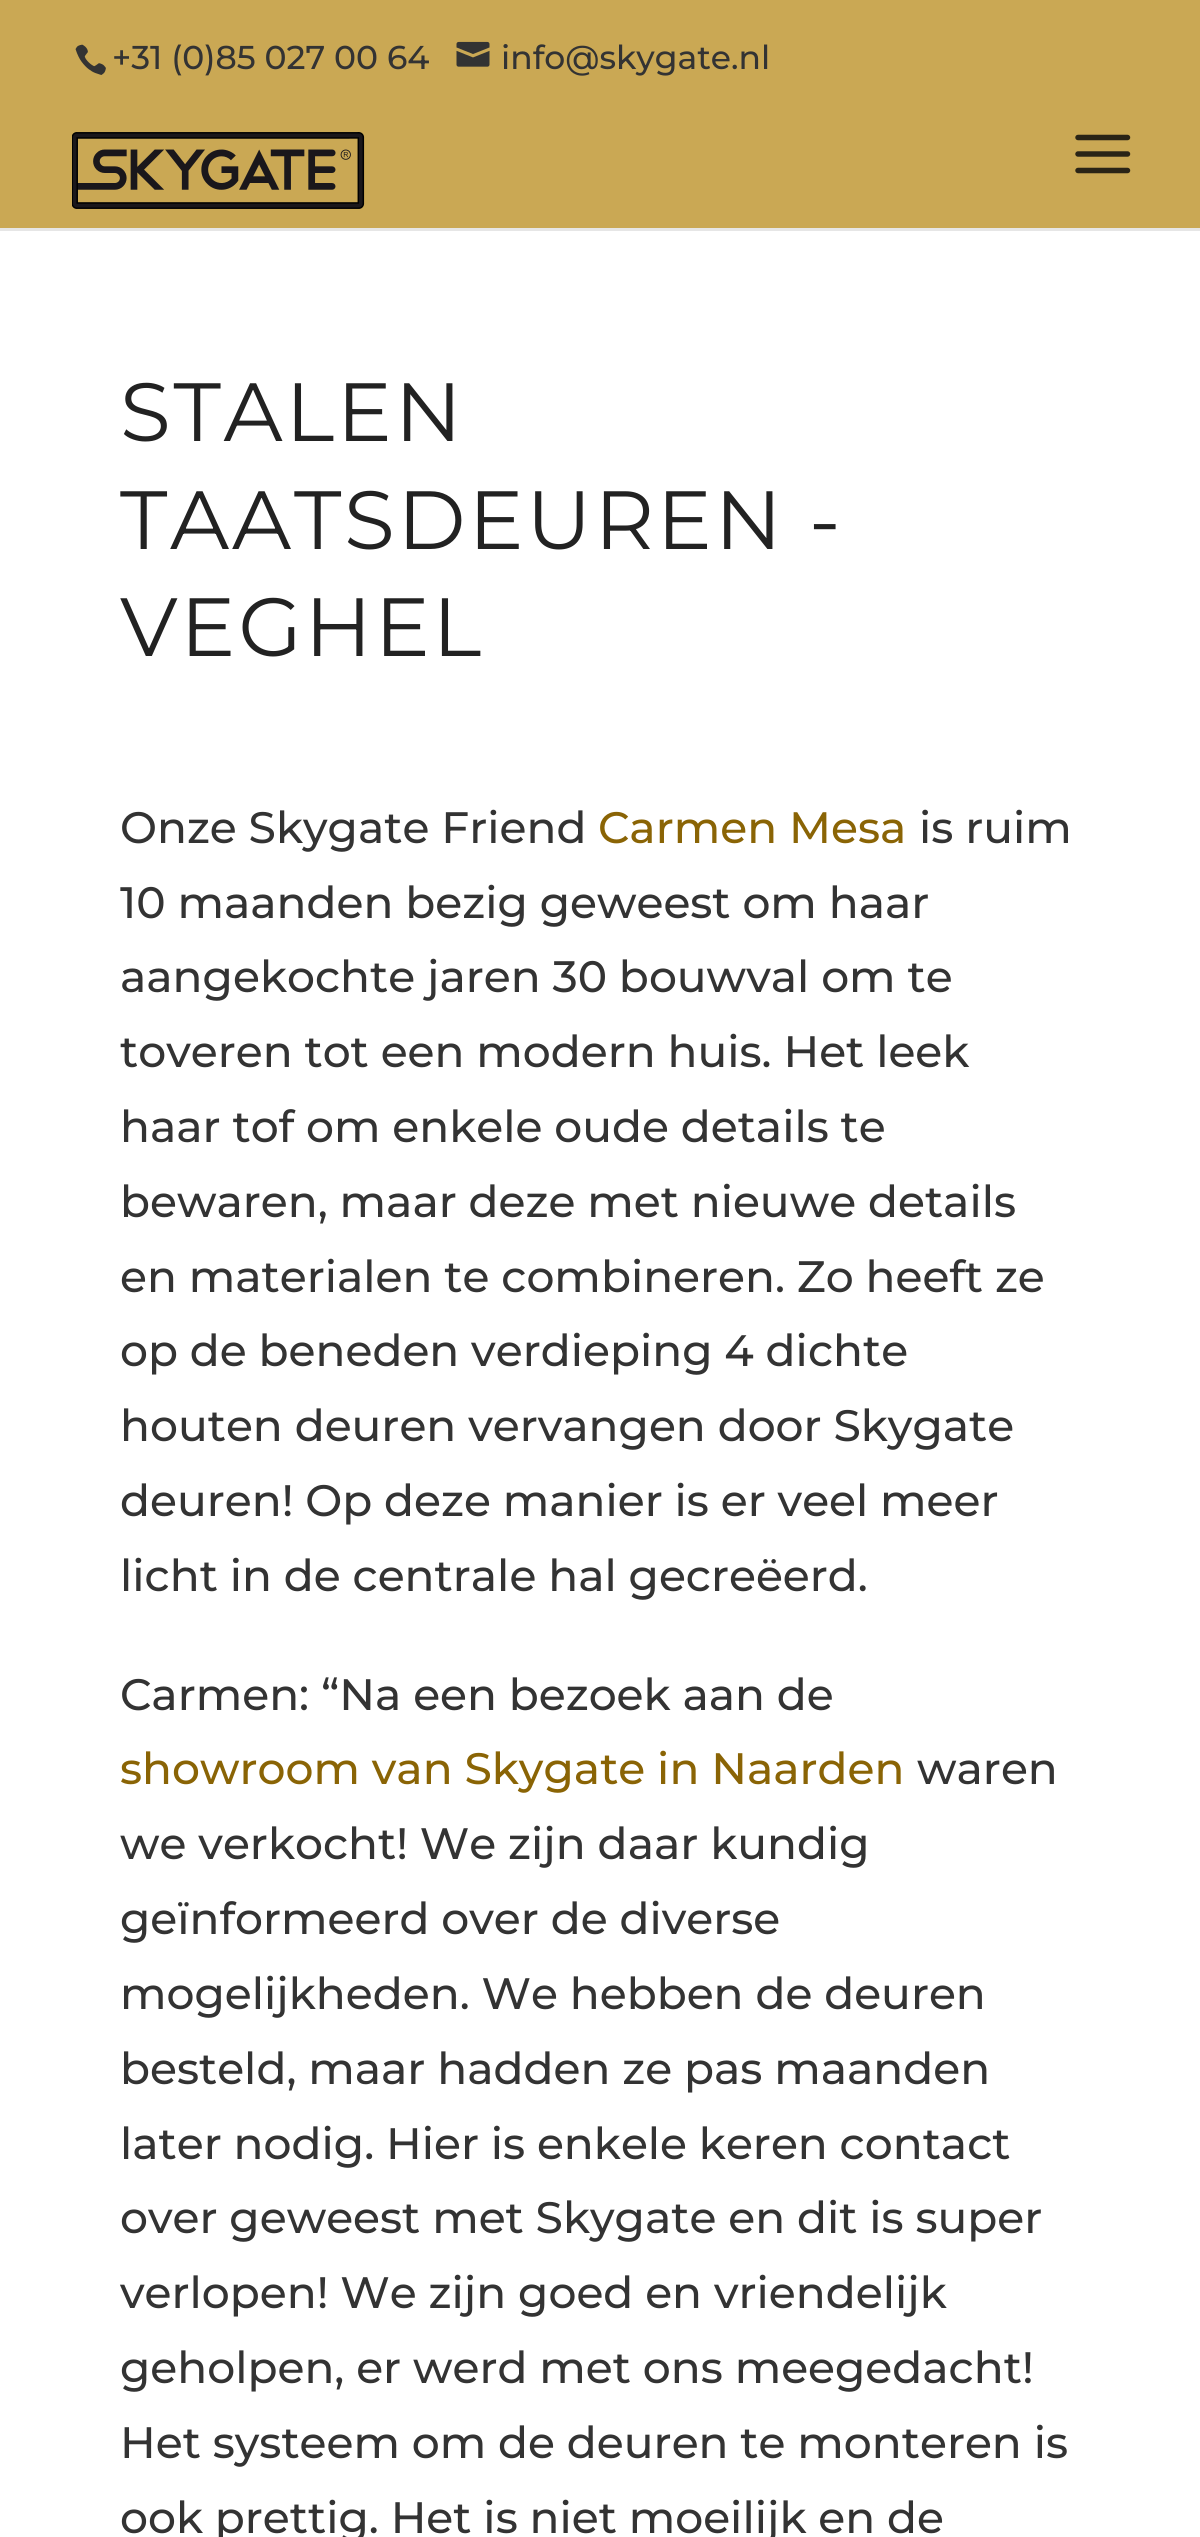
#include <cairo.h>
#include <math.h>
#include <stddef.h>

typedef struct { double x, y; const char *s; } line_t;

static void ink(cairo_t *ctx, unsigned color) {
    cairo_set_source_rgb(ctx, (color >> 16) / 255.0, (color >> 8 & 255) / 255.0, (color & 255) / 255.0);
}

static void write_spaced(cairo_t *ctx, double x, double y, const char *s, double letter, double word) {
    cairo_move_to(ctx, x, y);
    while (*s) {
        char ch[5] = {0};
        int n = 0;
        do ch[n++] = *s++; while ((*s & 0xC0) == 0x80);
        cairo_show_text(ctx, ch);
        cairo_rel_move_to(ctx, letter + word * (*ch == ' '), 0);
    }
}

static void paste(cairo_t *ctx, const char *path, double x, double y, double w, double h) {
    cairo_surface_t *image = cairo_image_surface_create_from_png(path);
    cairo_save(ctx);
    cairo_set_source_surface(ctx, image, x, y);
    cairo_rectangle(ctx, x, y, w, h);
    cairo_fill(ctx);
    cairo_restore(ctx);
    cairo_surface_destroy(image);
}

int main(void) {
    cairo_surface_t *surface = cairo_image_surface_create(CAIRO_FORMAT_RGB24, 1200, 2537);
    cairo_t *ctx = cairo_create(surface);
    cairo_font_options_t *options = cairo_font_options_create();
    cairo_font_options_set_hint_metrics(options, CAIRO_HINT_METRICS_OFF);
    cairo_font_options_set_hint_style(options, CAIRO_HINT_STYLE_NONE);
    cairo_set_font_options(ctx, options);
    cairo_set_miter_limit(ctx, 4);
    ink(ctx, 0xFFFFFF);
    cairo_paint(ctx);
    ink(ctx, 0xE6E6E6);
    cairo_new_path(ctx);
    cairo_move_to(ctx, 0, 228);
    cairo_line_to(ctx, 0, 231);
    cairo_line_to(ctx, 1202, 231);
    cairo_line_to(ctx, 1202, 116);
    cairo_line_to(ctx, 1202, 228);
    cairo_close_path(ctx);
    cairo_fill(ctx);
    ink(ctx, 0xCAA854);
    cairo_rectangle(ctx, 0, 0, 1200, 228);
    cairo_fill(ctx);
    paste(ctx, "media/1.png", 72, 132, 293, 77);
    paste(ctx, "media/2.png", 1075, 134, 56, 40);
    paste(ctx, "media/3.png", 75, 44, 31, 31);
    cairo_select_font_face(ctx, "Montserrat Medium", CAIRO_FONT_SLANT_NORMAL, CAIRO_FONT_WEIGHT_NORMAL);
    cairo_set_font_size(ctx, 33);
    ink(ctx, 0x333333);
    cairo_move_to(ctx, 112, 69);
    cairo_show_text(ctx, "+31 (0)85 027 00 64");
    paste(ctx, "media/4.png", 456, 41, 34, 26);
    cairo_move_to(ctx, 501, 69);
    cairo_show_text(ctx, "info@skygate.nl");
    cairo_select_font_face(ctx, "Montserrat", CAIRO_FONT_SLANT_NORMAL, CAIRO_FONT_WEIGHT_NORMAL);
    cairo_set_font_size(ctx, 82.5);
    ink(ctx, 0x222222);
    {
        static const line_t items[] = {
            {120, 441, "STALEN"},
            {120, 549, "TAATSDEUREN -"},
            {120, 656, "VEGHEL"},
        };
        for (size_t i = 0; i < sizeof items / sizeof *items; i++) {
            write_spaced(ctx, items[i].x, items[i].y, items[i].s, 2.75, 0);
        }
    }
    cairo_select_font_face(ctx, "Montserrat Medium", CAIRO_FONT_SLANT_NORMAL, CAIRO_FONT_WEIGHT_NORMAL);
    cairo_set_font_size(ctx, 44);
    ink(ctx, 0x333333);
    cairo_move_to(ctx, 120, 843);
    cairo_show_text(ctx, "Onze Skygate Friend");
    ink(ctx, 0x8A6405);
    cairo_move_to(ctx, 598, 843);
    cairo_show_text(ctx, "Carmen Mesa");
    ink(ctx, 0x333333);
    {
        static const line_t items[] = {
            {919, 843, "is ruim"},
            {120, 918, "10 maanden bezig geweest om haar"},
            {120, 992, "aangekochte jaren 30 bouwval om te"},
            {120, 1067, "toveren tot een modern huis. Het leek"},
            {120, 1142, "haar tof om enkele oude details te"},
            {120, 1217, "bewaren, maar deze met nieuwe details"},
            {120, 1292, "en materialen te combineren. Zo heeft ze"},
            {120, 1366, "op de beneden verdieping 4 dichte"},
            {120, 1441, "houten deuren vervangen door Skygate"},
            {120, 1516, "deuren! Op deze manier is er veel meer"},
            {120, 1591, "licht in de centrale hal gecreëerd."},
            {120, 1710, "Carmen: “Na een bezoek aan de"},
        };
        for (size_t i = 0; i < sizeof items / sizeof *items; i++) {
            cairo_move_to(ctx, items[i].x, items[i].y);
            cairo_show_text(ctx, items[i].s);
        }
    }
    ink(ctx, 0x8A6405);
    cairo_move_to(ctx, 120, 1784);
    cairo_show_text(ctx, "showroom van Skygate in Naarden");
    ink(ctx, 0x333333);
    {
        static const line_t items[] = {
            {917, 1784, "waren"},
            {120, 1859, "we verkocht! We zijn daar kundig"},
            {120, 1934, "geïnformeerd over de diverse"},
            {120, 2009, "mogelijkheden. We hebben de deuren"},
            {120, 2084, "besteld, maar hadden ze pas maanden"},
            {120, 2159, "later nodig. Hier is enkele keren contact"},
            {120, 2233, "over geweest met Skygate en dit is super"},
            {120, 2308, "verlopen! We zijn goed en vriendelijk"},
            {120, 2383, "geholpen, er werd met ons meegedacht!"},
            {120, 2458, "Het systeem om de deuren te monteren is"},
            {120, 2533, "ook prettig. Het is niet moeilijk en de"},
        };
        for (size_t i = 0; i < sizeof items / sizeof *items; i++) {
            cairo_move_to(ctx, items[i].x, items[i].y);
            cairo_show_text(ctx, items[i].s);
        }
    }
    cairo_surface_write_to_png(surface, "image.png");
    cairo_font_options_destroy(options);
    cairo_destroy(ctx);
    cairo_surface_destroy(surface);
    return 0;
}
